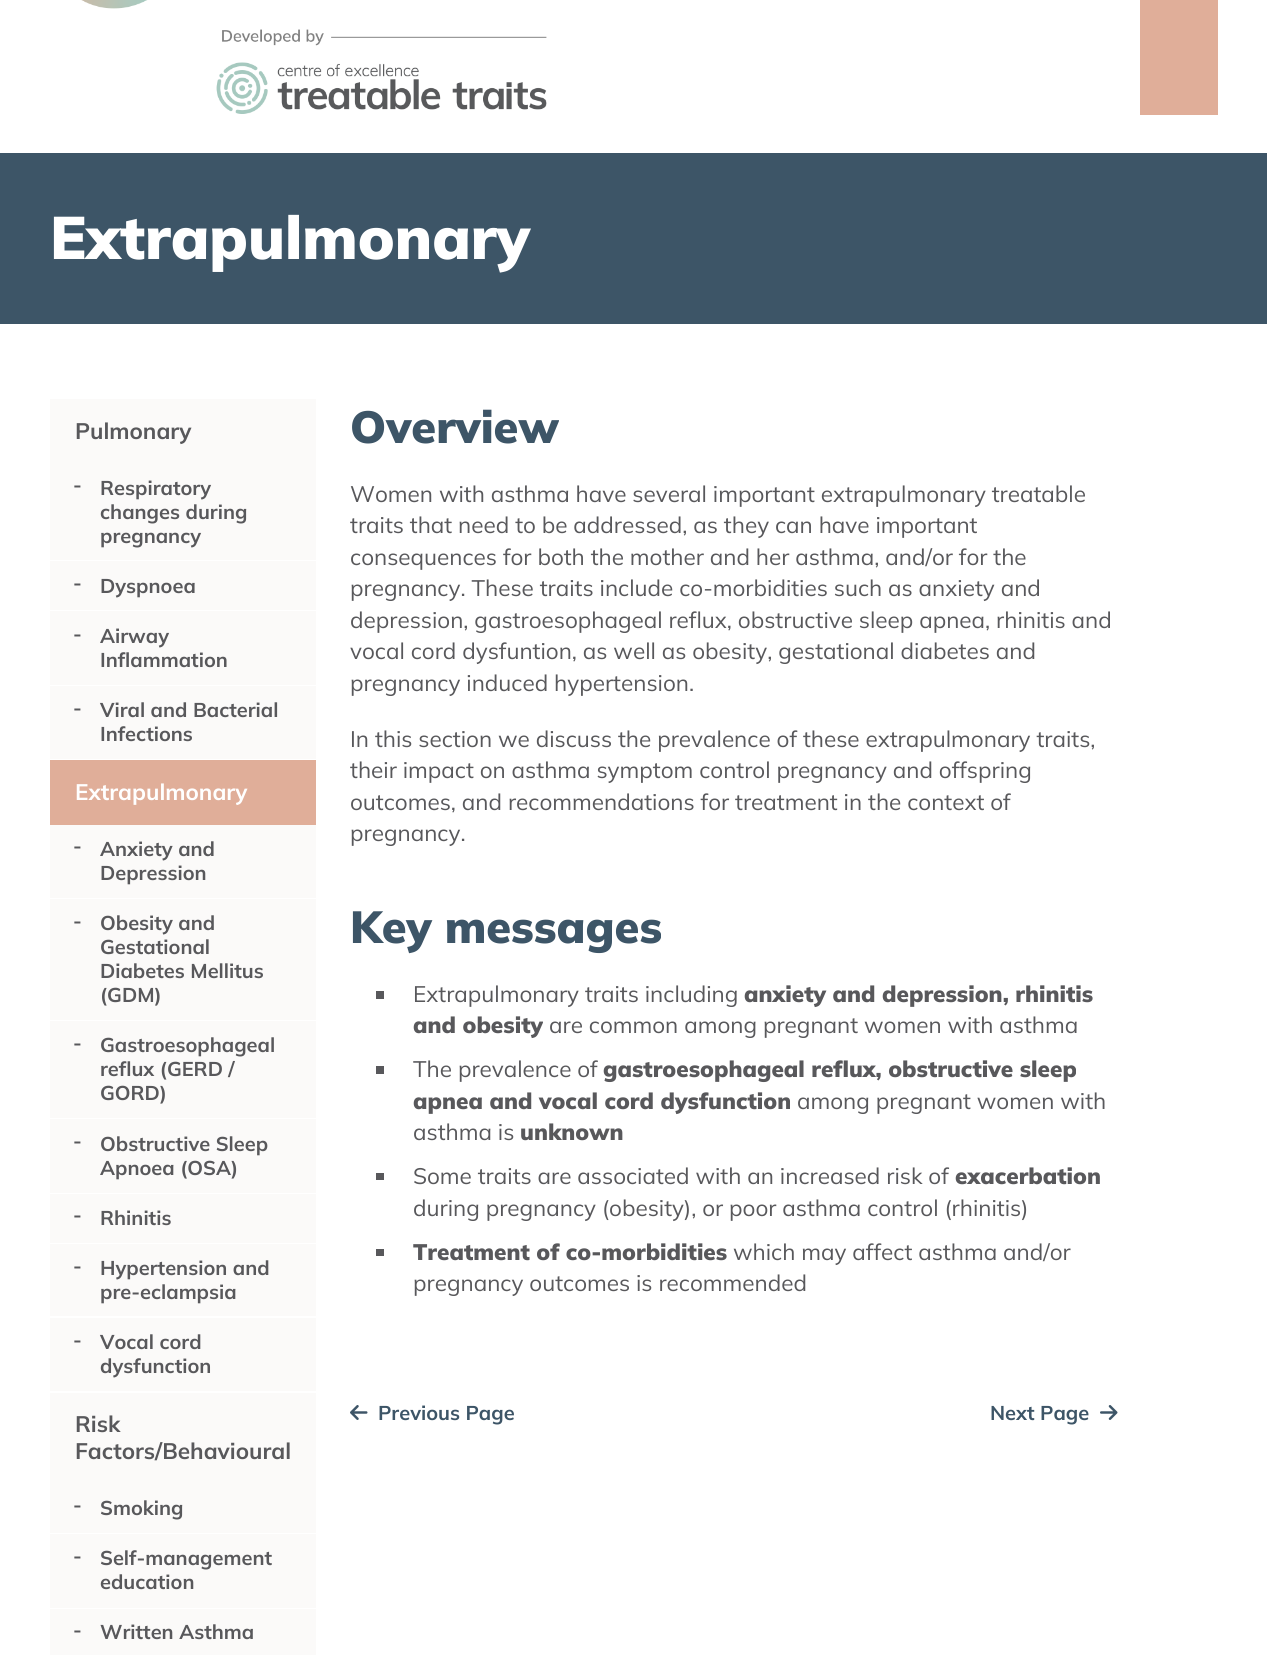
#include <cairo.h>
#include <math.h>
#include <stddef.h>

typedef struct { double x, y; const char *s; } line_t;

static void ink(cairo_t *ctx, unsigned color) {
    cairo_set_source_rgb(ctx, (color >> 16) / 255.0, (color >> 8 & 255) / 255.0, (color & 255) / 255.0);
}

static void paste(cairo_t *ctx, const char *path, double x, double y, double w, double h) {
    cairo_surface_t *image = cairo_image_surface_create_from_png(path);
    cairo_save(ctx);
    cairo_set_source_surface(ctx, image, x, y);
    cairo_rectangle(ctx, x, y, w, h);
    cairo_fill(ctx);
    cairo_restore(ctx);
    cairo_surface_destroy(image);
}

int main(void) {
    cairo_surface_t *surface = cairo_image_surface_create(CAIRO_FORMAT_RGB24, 1267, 1655);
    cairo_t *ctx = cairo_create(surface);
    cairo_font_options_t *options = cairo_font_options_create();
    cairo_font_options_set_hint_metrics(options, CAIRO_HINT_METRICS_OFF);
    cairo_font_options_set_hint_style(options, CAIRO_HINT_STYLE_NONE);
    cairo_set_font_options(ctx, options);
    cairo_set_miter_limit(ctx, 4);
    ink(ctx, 0xFFFFFF);
    cairo_paint(ctx);
    paste(ctx, "media/1.png", 81, 0, 466, 114);
    ink(ctx, 0xE0AE99);
    cairo_rectangle(ctx, 1140, 0, 78, 115);
    cairo_fill(ctx);
    ink(ctx, 0x3D5567);
    cairo_rectangle(ctx, 0, 153, 1267, 171);
    cairo_fill(ctx);
    cairo_select_font_face(ctx, "Mulish Black", CAIRO_FONT_SLANT_NORMAL, CAIRO_FONT_WEIGHT_NORMAL);
    cairo_set_font_size(ctx, 60);
    ink(ctx, 0xFFFFFF);
    cairo_move_to(ctx, 50, 259);
    cairo_show_text(ctx, "Extrapulmonary");
    ink(ctx, 0xFBFAF9);
    cairo_rectangle(ctx, 50, 399, 266, 161);
    cairo_fill(ctx);
    cairo_select_font_face(ctx, "Mulish", CAIRO_FONT_SLANT_NORMAL, CAIRO_FONT_WEIGHT_BOLD);
    cairo_set_font_size(ctx, 22.5);
    ink(ctx, 0x58585B);
    cairo_move_to(ctx, 75, 439);
    cairo_show_text(ctx, "Pulmonary");
    cairo_set_font_size(ctx, 20);
    {
        static const line_t items[] = {
            {73, 492, "-"},
            {100, 495, "Respiratory"},
            {100, 519, "changes during"},
            {100, 543, "pregnancy"},
        };
        for (size_t i = 0; i < sizeof items / sizeof *items; i++) {
            cairo_move_to(ctx, items[i].x, items[i].y);
            cairo_show_text(ctx, items[i].s);
        }
    }
    ink(ctx, 0xFBFAF9);
    cairo_rectangle(ctx, 50, 561, 266, 49);
    cairo_fill(ctx);
    ink(ctx, 0x58585B);
    cairo_move_to(ctx, 73, 590);
    cairo_show_text(ctx, "-");
    cairo_move_to(ctx, 100, 593);
    cairo_show_text(ctx, "Dyspnoea");
    ink(ctx, 0xFBFAF9);
    cairo_rectangle(ctx, 50, 611, 266, 74);
    cairo_fill(ctx);
    ink(ctx, 0x58585B);
    {
        static const line_t items[] = {
            {73, 641, "-"},
            {100, 643, "Airway"},
            {100, 667, "Inflammation"},
        };
        for (size_t i = 0; i < sizeof items / sizeof *items; i++) {
            cairo_move_to(ctx, items[i].x, items[i].y);
            cairo_show_text(ctx, items[i].s);
        }
    }
    ink(ctx, 0xFBFAF9);
    cairo_rectangle(ctx, 50, 686, 266, 73);
    cairo_fill(ctx);
    ink(ctx, 0x58585B);
    {
        static const line_t items[] = {
            {73, 715, "-"},
            {100, 717, "Viral and Bacterial"},
            {100, 741, "Infections"},
        };
        for (size_t i = 0; i < sizeof items / sizeof *items; i++) {
            cairo_move_to(ctx, items[i].x, items[i].y);
            cairo_show_text(ctx, items[i].s);
        }
    }
    ink(ctx, 0xE0AE99);
    cairo_rectangle(ctx, 50, 760, 266, 65);
    cairo_fill(ctx);
    cairo_set_font_size(ctx, 22.5);
    ink(ctx, 0xFFFFFF);
    cairo_move_to(ctx, 75, 800);
    cairo_show_text(ctx, "Extrapulmonary");
    ink(ctx, 0xFBFAF9);
    cairo_rectangle(ctx, 50, 825, 266, 73);
    cairo_fill(ctx);
    cairo_set_font_size(ctx, 20);
    ink(ctx, 0x58585B);
    {
        static const line_t items[] = {
            {73, 853, "-"},
            {100, 856, "Anxiety and"},
            {100, 880, "Depression"},
        };
        for (size_t i = 0; i < sizeof items / sizeof *items; i++) {
            cairo_move_to(ctx, items[i].x, items[i].y);
            cairo_show_text(ctx, items[i].s);
        }
    }
    ink(ctx, 0xFBFAF9);
    cairo_rectangle(ctx, 50, 899, 266, 121);
    cairo_fill(ctx);
    ink(ctx, 0x58585B);
    {
        static const line_t items[] = {
            {73, 928, "-"},
            {100, 930, "Obesity and"},
            {100, 954, "Gestational"},
            {100, 978, "Diabetes Mellitus"},
            {100, 1002, "(GDM)"},
        };
        for (size_t i = 0; i < sizeof items / sizeof *items; i++) {
            cairo_move_to(ctx, items[i].x, items[i].y);
            cairo_show_text(ctx, items[i].s);
        }
    }
    ink(ctx, 0xFBFAF9);
    cairo_rectangle(ctx, 50, 1021, 266, 97);
    cairo_fill(ctx);
    ink(ctx, 0x58585B);
    {
        static const line_t items[] = {
            {73, 1050, "-"},
            {100, 1052, "Gastroesophageal"},
            {100, 1076, "reflux (GERD /"},
            {100, 1100, "GORD)"},
        };
        for (size_t i = 0; i < sizeof items / sizeof *items; i++) {
            cairo_move_to(ctx, items[i].x, items[i].y);
            cairo_show_text(ctx, items[i].s);
        }
    }
    ink(ctx, 0xFBFAF9);
    cairo_rectangle(ctx, 50, 1119, 266, 74);
    cairo_fill(ctx);
    ink(ctx, 0x58585B);
    {
        static const line_t items[] = {
            {73, 1148, "-"},
            {100, 1151, "Obstructive Sleep"},
            {100, 1175, "Apnoea (OSA)"},
        };
        for (size_t i = 0; i < sizeof items / sizeof *items; i++) {
            cairo_move_to(ctx, items[i].x, items[i].y);
            cairo_show_text(ctx, items[i].s);
        }
    }
    ink(ctx, 0xFBFAF9);
    cairo_rectangle(ctx, 50, 1194, 266, 49);
    cairo_fill(ctx);
    ink(ctx, 0x58585B);
    cairo_move_to(ctx, 73, 1222);
    cairo_show_text(ctx, "-");
    cairo_move_to(ctx, 100, 1225);
    cairo_show_text(ctx, "Rhinitis");
    ink(ctx, 0xFBFAF9);
    cairo_rectangle(ctx, 50, 1244, 266, 72);
    cairo_fill(ctx);
    ink(ctx, 0x58585B);
    {
        static const line_t items[] = {
            {73, 1273, "-"},
            {100, 1275, "Hypertension and"},
            {100, 1299, "pre-eclampsia"},
        };
        for (size_t i = 0; i < sizeof items / sizeof *items; i++) {
            cairo_move_to(ctx, items[i].x, items[i].y);
            cairo_show_text(ctx, items[i].s);
        }
    }
    ink(ctx, 0xFBFAF9);
    cairo_rectangle(ctx, 50, 1318, 266, 73);
    cairo_fill(ctx);
    ink(ctx, 0x58585B);
    {
        static const line_t items[] = {
            {73, 1347, "-"},
            {100, 1349, "Vocal cord"},
            {100, 1373, "dysfunction"},
        };
        for (size_t i = 0; i < sizeof items / sizeof *items; i++) {
            cairo_move_to(ctx, items[i].x, items[i].y);
            cairo_show_text(ctx, items[i].s);
        }
    }
    ink(ctx, 0xFBFAF9);
    cairo_rectangle(ctx, 50, 1393, 266, 140);
    cairo_fill(ctx);
    cairo_set_font_size(ctx, 22.5);
    ink(ctx, 0x58585B);
    cairo_move_to(ctx, 75, 1432);
    cairo_show_text(ctx, "Risk");
    cairo_move_to(ctx, 75, 1459);
    cairo_show_text(ctx, "Factors/Behavioural");
    cairo_set_font_size(ctx, 20);
    cairo_move_to(ctx, 73, 1512);
    cairo_show_text(ctx, "-");
    cairo_move_to(ctx, 100, 1515);
    cairo_show_text(ctx, "Smoking");
    ink(ctx, 0xFBFAF9);
    cairo_rectangle(ctx, 50, 1534, 266, 74);
    cairo_fill(ctx);
    ink(ctx, 0x58585B);
    {
        static const line_t items[] = {
            {73, 1563, "-"},
            {100, 1565, "Self-management"},
            {100, 1589, "education"},
        };
        for (size_t i = 0; i < sizeof items / sizeof *items; i++) {
            cairo_move_to(ctx, items[i].x, items[i].y);
            cairo_show_text(ctx, items[i].s);
        }
    }
    ink(ctx, 0xFBFAF9);
    cairo_rectangle(ctx, 50, 1609, 266, 46);
    cairo_fill(ctx);
    ink(ctx, 0x58585B);
    cairo_move_to(ctx, 73, 1637);
    cairo_show_text(ctx, "-");
    cairo_move_to(ctx, 100, 1639);
    cairo_show_text(ctx, "Written Asthma");
    cairo_select_font_face(ctx, "Mulish Black", CAIRO_FONT_SLANT_NORMAL, CAIRO_FONT_WEIGHT_NORMAL);
    cairo_set_font_size(ctx, 45);
    ink(ctx, 0x3D5567);
    cairo_move_to(ctx, 350, 443);
    cairo_show_text(ctx, "Overview");
    cairo_select_font_face(ctx, "Mulish", CAIRO_FONT_SLANT_NORMAL, CAIRO_FONT_WEIGHT_NORMAL);
    cairo_set_font_size(ctx, 22.5);
    ink(ctx, 0x58585B);
    {
        static const line_t items[] = {
            {350, 502, "Women with asthma have several important extrapulmonary treatable"},
            {350, 533, "traits that need to be addressed, as they can have important"},
            {350, 565, "consequences for both the mother and her asthma, and/or for the"},
            {350, 596, "pregnancy. These traits include co-morbidities such as anxiety and"},
            {350, 628, "depression, gastroesophageal reflux, obstructive sleep apnea, rhinitis and"},
            {350, 659, "vocal cord dysfuntion, as well as obesity, gestational diabetes and"},
            {350, 691, "pregnancy induced hypertension."},
            {350, 747, "In this section we discuss the prevalence of these extrapulmonary traits,"},
            {350, 778, "their impact on asthma symptom control pregnancy and offspring"},
            {350, 810, "outcomes, and recommendations for treatment in the context of"},
            {350, 841, "pregnancy."},
        };
        for (size_t i = 0; i < sizeof items / sizeof *items; i++) {
            cairo_move_to(ctx, items[i].x, items[i].y);
            cairo_show_text(ctx, items[i].s);
        }
    }
    cairo_select_font_face(ctx, "Mulish Black", CAIRO_FONT_SLANT_NORMAL, CAIRO_FONT_WEIGHT_NORMAL);
    cairo_set_font_size(ctx, 45);
    ink(ctx, 0x3D5567);
    cairo_move_to(ctx, 350, 943);
    cairo_show_text(ctx, "Key messages");
    ink(ctx, 0x58585B);
    cairo_rectangle(ctx, 376, 991, 8, 8);
    cairo_fill(ctx);
    cairo_select_font_face(ctx, "Mulish", CAIRO_FONT_SLANT_NORMAL, CAIRO_FONT_WEIGHT_NORMAL);
    cairo_set_font_size(ctx, 22.5);
    cairo_move_to(ctx, 413, 1002);
    cairo_show_text(ctx, "Extrapulmonary traits including");
    cairo_select_font_face(ctx, "Mulish Black", CAIRO_FONT_SLANT_NORMAL, CAIRO_FONT_WEIGHT_NORMAL);
    cairo_move_to(ctx, 744, 1002);
    cairo_show_text(ctx, "anxiety and depression, rhinitis");
    cairo_move_to(ctx, 413, 1033);
    cairo_show_text(ctx, "and obesity");
    cairo_select_font_face(ctx, "Mulish", CAIRO_FONT_SLANT_NORMAL, CAIRO_FONT_WEIGHT_NORMAL);
    cairo_move_to(ctx, 549, 1033);
    cairo_show_text(ctx, "are common among pregnant women with asthma");
    cairo_rectangle(ctx, 376, 1066, 8, 8);
    cairo_fill(ctx);
    cairo_move_to(ctx, 413, 1077);
    cairo_show_text(ctx, "The prevalence of");
    cairo_select_font_face(ctx, "Mulish Black", CAIRO_FONT_SLANT_NORMAL, CAIRO_FONT_WEIGHT_NORMAL);
    cairo_move_to(ctx, 603, 1077);
    cairo_show_text(ctx, "gastroesophageal reflux, obstructive sleep");
    cairo_move_to(ctx, 413, 1109);
    cairo_show_text(ctx, "apnea and vocal cord dysfunction");
    cairo_select_font_face(ctx, "Mulish", CAIRO_FONT_SLANT_NORMAL, CAIRO_FONT_WEIGHT_NORMAL);
    cairo_move_to(ctx, 797, 1109);
    cairo_show_text(ctx, "among pregnant women with");
    cairo_move_to(ctx, 413, 1140);
    cairo_show_text(ctx, "asthma is");
    cairo_select_font_face(ctx, "Mulish Black", CAIRO_FONT_SLANT_NORMAL, CAIRO_FONT_WEIGHT_NORMAL);
    cairo_move_to(ctx, 520, 1140);
    cairo_show_text(ctx, "unknown");
    cairo_rectangle(ctx, 376, 1173, 8, 7);
    cairo_fill(ctx);
    cairo_select_font_face(ctx, "Mulish", CAIRO_FONT_SLANT_NORMAL, CAIRO_FONT_WEIGHT_NORMAL);
    cairo_move_to(ctx, 413, 1184);
    cairo_show_text(ctx, "Some traits are associated with an increased risk of");
    cairo_select_font_face(ctx, "Mulish Black", CAIRO_FONT_SLANT_NORMAL, CAIRO_FONT_WEIGHT_NORMAL);
    cairo_move_to(ctx, 955, 1184);
    cairo_show_text(ctx, "exacerbation");
    cairo_select_font_face(ctx, "Mulish", CAIRO_FONT_SLANT_NORMAL, CAIRO_FONT_WEIGHT_NORMAL);
    cairo_move_to(ctx, 413, 1216);
    cairo_show_text(ctx, "during pregnancy (obesity), or poor asthma control (rhinitis)");
    cairo_rectangle(ctx, 376, 1249, 8, 7);
    cairo_fill(ctx);
    cairo_select_font_face(ctx, "Mulish Black", CAIRO_FONT_SLANT_NORMAL, CAIRO_FONT_WEIGHT_NORMAL);
    cairo_move_to(ctx, 413, 1260);
    cairo_show_text(ctx, "Treatment of co-morbidities");
    cairo_select_font_face(ctx, "Mulish", CAIRO_FONT_SLANT_NORMAL, CAIRO_FONT_WEIGHT_NORMAL);
    cairo_move_to(ctx, 733, 1260);
    cairo_show_text(ctx, "which may affect asthma and/or");
    cairo_move_to(ctx, 413, 1291);
    cairo_show_text(ctx, "pregnancy outcomes is recommended");
    paste(ctx, "media/2.png", 350, 1405, 18, 15);
    cairo_select_font_face(ctx, "Mulish", CAIRO_FONT_SLANT_NORMAL, CAIRO_FONT_WEIGHT_BOLD);
    cairo_set_font_size(ctx, 20);
    ink(ctx, 0x3D5567);
    cairo_move_to(ctx, 378, 1420);
    cairo_show_text(ctx, "Previous Page");
    cairo_move_to(ctx, 990, 1420);
    cairo_show_text(ctx, "Next Page");
    paste(ctx, "media/3.png", 1100, 1405, 18, 15);
    cairo_surface_write_to_png(surface, "image.png");
    cairo_font_options_destroy(options);
    cairo_destroy(ctx);
    cairo_surface_destroy(surface);
    return 0;
}
